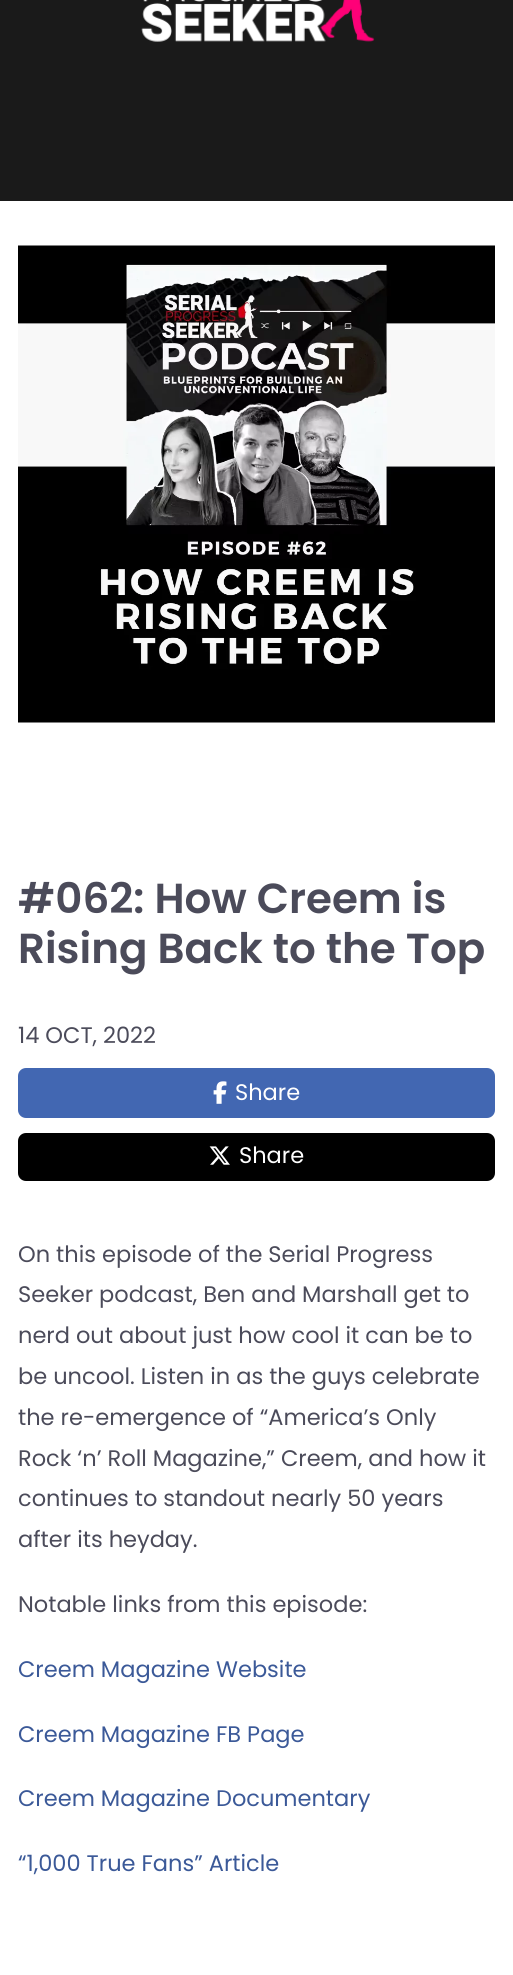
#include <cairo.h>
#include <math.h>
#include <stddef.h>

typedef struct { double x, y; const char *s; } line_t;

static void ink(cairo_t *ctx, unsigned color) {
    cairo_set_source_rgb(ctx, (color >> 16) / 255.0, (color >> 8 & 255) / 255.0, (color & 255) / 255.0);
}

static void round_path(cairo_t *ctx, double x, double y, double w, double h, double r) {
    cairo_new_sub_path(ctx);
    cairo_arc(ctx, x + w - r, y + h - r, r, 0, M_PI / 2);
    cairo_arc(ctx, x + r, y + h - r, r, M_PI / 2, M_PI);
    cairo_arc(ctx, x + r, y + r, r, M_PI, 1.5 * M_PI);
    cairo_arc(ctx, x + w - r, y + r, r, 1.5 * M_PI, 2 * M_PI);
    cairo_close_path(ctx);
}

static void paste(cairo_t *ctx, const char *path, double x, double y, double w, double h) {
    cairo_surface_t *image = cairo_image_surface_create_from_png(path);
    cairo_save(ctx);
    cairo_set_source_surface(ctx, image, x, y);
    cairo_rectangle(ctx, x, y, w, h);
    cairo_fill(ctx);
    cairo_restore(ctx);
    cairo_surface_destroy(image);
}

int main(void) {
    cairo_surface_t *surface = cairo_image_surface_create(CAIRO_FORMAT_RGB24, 513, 1975);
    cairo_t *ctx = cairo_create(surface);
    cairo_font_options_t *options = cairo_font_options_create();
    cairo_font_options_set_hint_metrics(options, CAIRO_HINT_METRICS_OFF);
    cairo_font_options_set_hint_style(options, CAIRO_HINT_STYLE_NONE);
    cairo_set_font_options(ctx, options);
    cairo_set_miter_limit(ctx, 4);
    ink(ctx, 0xFFFFFF);
    cairo_paint(ctx);
    ink(ctx, 0x1A1A1A);
    cairo_rectangle(ctx, 0, 0, 513, 201);
    cairo_fill(ctx);
    paste(ctx, "media/1.png", 141, 0, 234, 42);
    paste(ctx, "media/2.png", 18, 245, 477, 478);
    cairo_select_font_face(ctx, "Poppins SemiBold", CAIRO_FONT_SLANT_NORMAL, CAIRO_FONT_WEIGHT_NORMAL);
    cairo_set_font_size(ctx, 42);
    ink(ctx, 0x4B4B5A);
    cairo_move_to(ctx, 18, 913);
    cairo_show_text(ctx, "#062: How Creem is");
    cairo_move_to(ctx, 18, 963);
    cairo_show_text(ctx, "Rising Back to the Top");
    cairo_select_font_face(ctx, "Poppins", CAIRO_FONT_SLANT_NORMAL, CAIRO_FONT_WEIGHT_NORMAL);
    cairo_set_font_size(ctx, 22.5);
    cairo_move_to(ctx, 18, 1043);
    cairo_show_text(ctx, "14 OCT, 2022");
    ink(ctx, 0x4267B2);
    round_path(ctx, 18, 1068, 477, 50, 8);
    cairo_fill(ctx);
    paste(ctx, "media/3.png", 213, 1081, 14, 23);
    ink(ctx, 0xFFFFFF);
    cairo_move_to(ctx, 235, 1100);
    cairo_show_text(ctx, "Share");
    ink(ctx, 0x000000);
    round_path(ctx, 18, 1133, 477, 48, 8);
    cairo_fill(ctx);
    paste(ctx, "media/4.png", 209, 1146, 21, 19);
    ink(ctx, 0xFFFFFF);
    cairo_move_to(ctx, 239, 1163);
    cairo_show_text(ctx, "Share");
    ink(ctx, 0x4B4B5A);
    {
        static const line_t items[] = {
            {18, 1262, "On this episode of the Serial Progress"},
            {18, 1302, "Seeker podcast, Ben and Marshall get to"},
            {18, 1343, "nerd out about just how cool it can be to"},
            {18, 1384, "be uncool. Listen in as the guys celebrate"},
            {18, 1425, "the re-emergence of “America’s Only"},
            {18, 1466, "Rock ‘n’ Roll Magazine,” Creem, and how it"},
            {18, 1506, "continues to standout nearly 50 years"},
            {18, 1547, "after its heyday."},
            {18, 1612, "Notable links from this episode:"},
        };
        for (size_t i = 0; i < sizeof items / sizeof *items; i++) {
            cairo_move_to(ctx, items[i].x, items[i].y);
            cairo_show_text(ctx, items[i].s);
        }
    }
    ink(ctx, 0x3B5998);
    {
        static const line_t items[] = {
            {18, 1677, "Creem Magazine Website"},
            {18, 1742, "Creem Magazine FB Page"},
            {18, 1806, "Creem Magazine Documentary"},
            {18, 1871, "“1,000 True Fans” Article"},
        };
        for (size_t i = 0; i < sizeof items / sizeof *items; i++) {
            cairo_move_to(ctx, items[i].x, items[i].y);
            cairo_show_text(ctx, items[i].s);
        }
    }
    cairo_surface_write_to_png(surface, "image.png");
    cairo_font_options_destroy(options);
    cairo_destroy(ctx);
    cairo_surface_destroy(surface);
    return 0;
}
